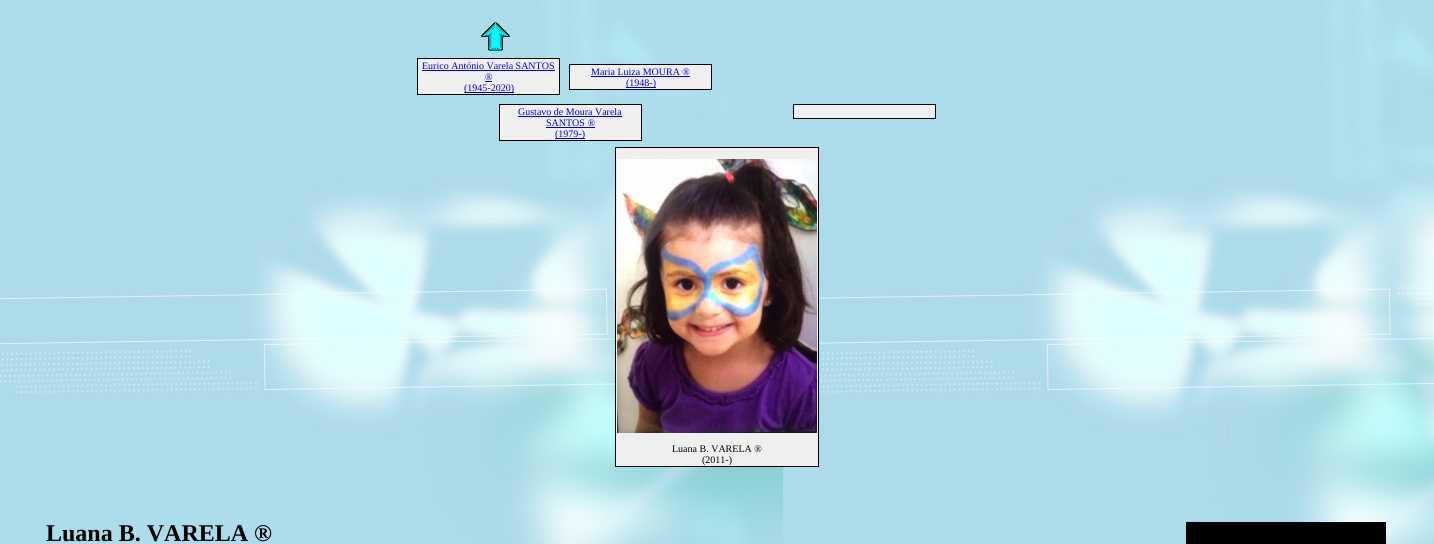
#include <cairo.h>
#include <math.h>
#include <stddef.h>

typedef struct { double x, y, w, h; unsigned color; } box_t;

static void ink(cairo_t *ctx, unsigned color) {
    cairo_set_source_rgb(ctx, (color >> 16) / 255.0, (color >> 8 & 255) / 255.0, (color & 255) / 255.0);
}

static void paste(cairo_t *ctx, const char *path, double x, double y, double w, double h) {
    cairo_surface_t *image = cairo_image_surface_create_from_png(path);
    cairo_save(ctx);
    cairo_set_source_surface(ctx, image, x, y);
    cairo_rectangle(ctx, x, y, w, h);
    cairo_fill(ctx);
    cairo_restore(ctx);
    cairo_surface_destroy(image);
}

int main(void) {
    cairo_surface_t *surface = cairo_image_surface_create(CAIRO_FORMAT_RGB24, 1434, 544);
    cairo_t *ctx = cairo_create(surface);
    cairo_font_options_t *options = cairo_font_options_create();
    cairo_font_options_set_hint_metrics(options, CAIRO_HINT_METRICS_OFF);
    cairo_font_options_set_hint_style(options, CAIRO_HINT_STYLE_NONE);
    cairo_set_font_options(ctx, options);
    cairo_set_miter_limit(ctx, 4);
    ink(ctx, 0xFFFFFF);
    cairo_paint(ctx);
    paste(ctx, "media/1.png", 0, 0, 1434, 544);
    paste(ctx, "media/2.png", 481, 22, 29, 29);
    ink(ctx, 0x000000);
    cairo_rectangle(ctx, 417, 58, 143, 37);
    cairo_fill(ctx);
    ink(ctx, 0xEFEFEF);
    cairo_rectangle(ctx, 418, 59, 141, 35);
    cairo_fill(ctx);
    cairo_select_font_face(ctx, "Liberation Serif", CAIRO_FONT_SLANT_NORMAL, CAIRO_FONT_WEIGHT_NORMAL);
    cairo_set_font_size(ctx, 10);
    ink(ctx, 0x0000EE);
    cairo_move_to(ctx, 422, 69);
    cairo_show_text(ctx, "Eurico António Varela SANTOS");
    cairo_rectangle(ctx, 422, 70, 133, 1);
    cairo_fill(ctx);
    cairo_move_to(ctx, 485, 80);
    cairo_show_text(ctx, "®");
    cairo_rectangle(ctx, 485, 81, 7, 1);
    cairo_fill(ctx);
    cairo_rectangle(ctx, 464, 92, 50, 1);
    cairo_fill(ctx);
    cairo_move_to(ctx, 464, 91);
    cairo_show_text(ctx, "(1945-2020)");
    ink(ctx, 0x000000);
    cairo_rectangle(ctx, 569, 64, 143, 26);
    cairo_fill(ctx);
    ink(ctx, 0xEFEFEF);
    cairo_rectangle(ctx, 570, 65, 141, 24);
    cairo_fill(ctx);
    ink(ctx, 0x0000EE);
    cairo_move_to(ctx, 591, 75);
    cairo_show_text(ctx, "Maria Luiza MOURA ®");
    cairo_rectangle(ctx, 591, 76, 99, 1);
    cairo_fill(ctx);
    cairo_rectangle(ctx, 626, 87, 30, 1);
    cairo_fill(ctx);
    cairo_move_to(ctx, 626, 86);
    cairo_show_text(ctx, "(1948-)");
    ink(ctx, 0x000000);
    cairo_rectangle(ctx, 499, 104, 143, 37);
    cairo_fill(ctx);
    ink(ctx, 0xEFEFEF);
    cairo_rectangle(ctx, 500, 105, 141, 35);
    cairo_fill(ctx);
    ink(ctx, 0x0000EE);
    cairo_move_to(ctx, 518, 115);
    cairo_show_text(ctx, "Gustavo de Moura Varela");
    cairo_rectangle(ctx, 518, 116, 104, 1);
    cairo_fill(ctx);
    cairo_move_to(ctx, 546, 126);
    cairo_show_text(ctx, "SANTOS ®");
    cairo_rectangle(ctx, 546, 127, 49, 1);
    cairo_fill(ctx);
    cairo_rectangle(ctx, 555, 138, 30, 1);
    cairo_fill(ctx);
    cairo_move_to(ctx, 555, 137);
    cairo_show_text(ctx, "(1979-)");
    {
        static const box_t items[] = {
            {793, 104, 143, 15, 0x000000},
            {794, 105, 141, 13, 0xEFEFEF},
            {615, 147, 204, 320, 0x000000},
            {616, 148, 202, 318, 0xEFEFEF},
        };
        for (size_t i = 0; i < sizeof items / sizeof *items; i++) {
            ink(ctx, items[i].color);
            cairo_rectangle(ctx, items[i].x, items[i].y, items[i].w, items[i].h);
            cairo_fill(ctx);
        }
    }
    paste(ctx, "media/3.png", 617, 159, 200, 274);
    ink(ctx, 0x000000);
    cairo_move_to(ctx, 672, 452);
    cairo_show_text(ctx, "Luana B. VARELA ®");
    cairo_move_to(ctx, 702, 463);
    cairo_show_text(ctx, "(2011-)");
    cairo_select_font_face(ctx, "Liberation Serif", CAIRO_FONT_SLANT_NORMAL, CAIRO_FONT_WEIGHT_BOLD);
    cairo_set_font_size(ctx, 24);
    cairo_move_to(ctx, 46, 541);
    cairo_show_text(ctx, "Luana B. VARELA ®");
    cairo_rectangle(ctx, 1186, 522, 200, 22);
    cairo_fill(ctx);
    cairo_surface_write_to_png(surface, "image.png");
    cairo_font_options_destroy(options);
    cairo_destroy(ctx);
    cairo_surface_destroy(surface);
    return 0;
}
